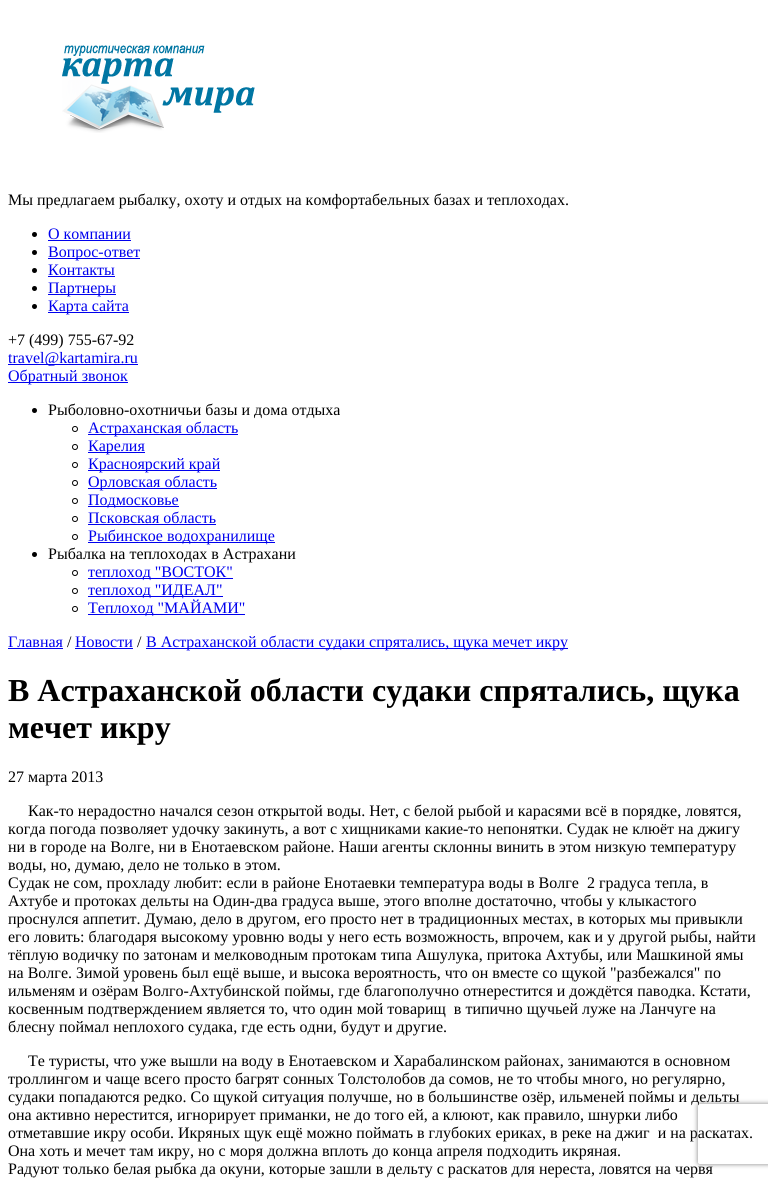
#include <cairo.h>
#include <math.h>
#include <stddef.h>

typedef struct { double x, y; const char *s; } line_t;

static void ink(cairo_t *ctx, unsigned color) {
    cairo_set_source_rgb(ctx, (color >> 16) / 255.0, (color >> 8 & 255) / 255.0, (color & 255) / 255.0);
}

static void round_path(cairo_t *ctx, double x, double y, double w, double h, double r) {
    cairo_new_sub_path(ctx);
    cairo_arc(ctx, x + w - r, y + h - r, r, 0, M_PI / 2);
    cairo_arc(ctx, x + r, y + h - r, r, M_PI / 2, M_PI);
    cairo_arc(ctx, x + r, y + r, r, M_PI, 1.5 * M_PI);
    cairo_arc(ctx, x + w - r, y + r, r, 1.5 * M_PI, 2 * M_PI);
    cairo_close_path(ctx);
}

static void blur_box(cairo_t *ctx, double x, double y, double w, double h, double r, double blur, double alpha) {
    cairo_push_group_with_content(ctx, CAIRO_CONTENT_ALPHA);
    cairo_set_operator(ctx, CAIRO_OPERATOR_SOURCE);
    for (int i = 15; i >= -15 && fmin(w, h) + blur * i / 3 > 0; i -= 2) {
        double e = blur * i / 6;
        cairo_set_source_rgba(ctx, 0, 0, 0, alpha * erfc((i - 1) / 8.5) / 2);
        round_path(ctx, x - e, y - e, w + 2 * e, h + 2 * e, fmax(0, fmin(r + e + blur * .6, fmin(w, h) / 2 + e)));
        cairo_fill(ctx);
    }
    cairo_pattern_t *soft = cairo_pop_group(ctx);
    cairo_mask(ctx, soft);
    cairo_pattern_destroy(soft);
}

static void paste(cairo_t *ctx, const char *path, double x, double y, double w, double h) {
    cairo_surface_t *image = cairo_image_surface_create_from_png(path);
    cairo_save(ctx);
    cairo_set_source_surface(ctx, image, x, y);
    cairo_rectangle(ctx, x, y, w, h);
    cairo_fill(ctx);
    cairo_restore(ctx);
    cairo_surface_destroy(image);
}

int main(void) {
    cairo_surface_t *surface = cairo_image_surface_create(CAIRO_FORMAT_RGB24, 768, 1178);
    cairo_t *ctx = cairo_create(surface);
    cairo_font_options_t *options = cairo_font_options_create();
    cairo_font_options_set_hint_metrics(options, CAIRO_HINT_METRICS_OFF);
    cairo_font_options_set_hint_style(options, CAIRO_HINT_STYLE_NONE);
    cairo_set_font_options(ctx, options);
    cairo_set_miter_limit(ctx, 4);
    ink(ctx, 0xFFFFFF);
    cairo_paint(ctx);
    paste(ctx, "media/1.png", 62, 45, 193, 88);
    cairo_select_font_face(ctx, "Liberation Serif", CAIRO_FONT_SLANT_NORMAL, CAIRO_FONT_WEIGHT_NORMAL);
    cairo_set_font_size(ctx, 16);
    ink(ctx, 0x000000);
    cairo_move_to(ctx, 8, 205);
    cairo_show_text(ctx, "Мы предлагаем рыбалку, охоту и отдых на комфортабельных базах и теплоходах.");
    cairo_new_path(ctx);
    cairo_arc(ctx, 34.5, 234.5, 2.5, 0, 2 * M_PI);
    cairo_fill(ctx);
    ink(ctx, 0x0000EE);
    cairo_move_to(ctx, 48, 239);
    cairo_show_text(ctx, "О компании");
    cairo_rectangle(ctx, 48, 240, 83, 1);
    cairo_fill(ctx);
    ink(ctx, 0x000000);
    cairo_arc(ctx, 34.5, 252.5, 2.5, 0, 2 * M_PI);
    cairo_fill(ctx);
    ink(ctx, 0x0000EE);
    cairo_rectangle(ctx, 48, 258, 92, 1);
    cairo_fill(ctx);
    cairo_move_to(ctx, 48, 257);
    cairo_show_text(ctx, "Вопрос-ответ");
    ink(ctx, 0x000000);
    cairo_new_path(ctx);
    cairo_arc(ctx, 34.5, 270.5, 2.5, 0, 2 * M_PI);
    cairo_fill(ctx);
    ink(ctx, 0x0000EE);
    cairo_move_to(ctx, 48, 275);
    cairo_show_text(ctx, "Контакты");
    cairo_rectangle(ctx, 48, 276, 67, 1);
    cairo_fill(ctx);
    ink(ctx, 0x000000);
    cairo_arc(ctx, 34.5, 288.5, 2.5, 0, 2 * M_PI);
    cairo_fill(ctx);
    ink(ctx, 0x0000EE);
    cairo_rectangle(ctx, 48, 294, 68, 1);
    cairo_fill(ctx);
    cairo_move_to(ctx, 48, 293);
    cairo_show_text(ctx, "Партнеры");
    ink(ctx, 0x000000);
    cairo_new_path(ctx);
    cairo_arc(ctx, 34.5, 306.5, 2.5, 0, 2 * M_PI);
    cairo_fill(ctx);
    ink(ctx, 0x0000EE);
    cairo_rectangle(ctx, 48, 312, 81, 1);
    cairo_fill(ctx);
    cairo_move_to(ctx, 48, 311);
    cairo_show_text(ctx, "Карта сайта");
    ink(ctx, 0x000000);
    cairo_move_to(ctx, 8, 345);
    cairo_show_text(ctx, "+7 (499) 755-67-92");
    ink(ctx, 0x0000EE);
    cairo_rectangle(ctx, 8, 364, 130, 1);
    cairo_fill(ctx);
    cairo_move_to(ctx, 8, 363);
    cairo_show_text(ctx, "travel@kartamira.ru");
    cairo_rectangle(ctx, 8, 382, 120, 1);
    cairo_fill(ctx);
    cairo_move_to(ctx, 8, 381);
    cairo_show_text(ctx, "Обратный звонок");
    ink(ctx, 0x000000);
    cairo_new_path(ctx);
    cairo_arc(ctx, 34.5, 410.5, 2.5, 0, 2 * M_PI);
    cairo_fill(ctx);
    cairo_move_to(ctx, 48, 415);
    cairo_show_text(ctx, "Рыболовно-охотничьи базы и дома отдыха");
    cairo_new_path(ctx);
    cairo_arc(ctx, 75, 429, 2.5, 0, 2 * M_PI);
    cairo_set_line_width(ctx, 1);
    cairo_stroke(ctx);
    ink(ctx, 0x0000EE);
    cairo_rectangle(ctx, 88, 434, 150, 1);
    cairo_fill(ctx);
    cairo_move_to(ctx, 88, 433);
    cairo_show_text(ctx, "Астраханская область");
    cairo_new_path(ctx);
    cairo_arc(ctx, 75, 447, 2.5, 0, 2 * M_PI);
    ink(ctx, 0x000000);
    cairo_stroke(ctx);
    ink(ctx, 0x0000EE);
    cairo_rectangle(ctx, 88, 452, 57, 1);
    cairo_fill(ctx);
    cairo_move_to(ctx, 88, 451);
    cairo_show_text(ctx, "Карелия");
    cairo_new_path(ctx);
    cairo_arc(ctx, 75, 465, 2.5, 0, 2 * M_PI);
    ink(ctx, 0x000000);
    cairo_stroke(ctx);
    ink(ctx, 0x0000EE);
    cairo_rectangle(ctx, 88, 470, 132, 1);
    cairo_fill(ctx);
    cairo_move_to(ctx, 88, 469);
    cairo_show_text(ctx, "Красноярский край");
    cairo_new_path(ctx);
    cairo_arc(ctx, 75, 483, 2.5, 0, 2 * M_PI);
    ink(ctx, 0x000000);
    cairo_stroke(ctx);
    ink(ctx, 0x0000EE);
    cairo_rectangle(ctx, 88, 488, 129, 1);
    cairo_fill(ctx);
    cairo_move_to(ctx, 88, 487);
    cairo_show_text(ctx, "Орловская область");
    cairo_new_path(ctx);
    cairo_arc(ctx, 75, 501, 2.5, 0, 2 * M_PI);
    ink(ctx, 0x000000);
    cairo_stroke(ctx);
    ink(ctx, 0x0000EE);
    cairo_rectangle(ctx, 88, 506, 91, 1);
    cairo_fill(ctx);
    cairo_move_to(ctx, 88, 505);
    cairo_show_text(ctx, "Подмосковье");
    cairo_new_path(ctx);
    cairo_arc(ctx, 75, 519, 2.5, 0, 2 * M_PI);
    ink(ctx, 0x000000);
    cairo_stroke(ctx);
    ink(ctx, 0x0000EE);
    cairo_move_to(ctx, 88, 523);
    cairo_show_text(ctx, "Псковская область");
    cairo_rectangle(ctx, 88, 524, 128, 1);
    cairo_fill(ctx);
    cairo_arc(ctx, 75, 537, 2.5, 0, 2 * M_PI);
    ink(ctx, 0x000000);
    cairo_stroke(ctx);
    ink(ctx, 0x0000EE);
    cairo_rectangle(ctx, 88, 542, 187, 1);
    cairo_fill(ctx);
    cairo_move_to(ctx, 88, 541);
    cairo_show_text(ctx, "Рыбинское водохранилище");
    ink(ctx, 0x000000);
    cairo_new_path(ctx);
    cairo_arc(ctx, 34.5, 554.5, 2.5, 0, 2 * M_PI);
    cairo_fill(ctx);
    cairo_move_to(ctx, 48, 559);
    cairo_show_text(ctx, "Рыбалка на теплоходах в Астрахани");
    cairo_new_path(ctx);
    cairo_arc(ctx, 75, 573, 2.5, 0, 2 * M_PI);
    cairo_stroke(ctx);
    ink(ctx, 0x0000EE);
    cairo_rectangle(ctx, 88, 578, 145, 1);
    cairo_fill(ctx);
    cairo_move_to(ctx, 88, 577);
    cairo_show_text(ctx, "теплоход \"ВОСТОК\"");
    cairo_new_path(ctx);
    cairo_arc(ctx, 75, 591, 2.5, 0, 2 * M_PI);
    ink(ctx, 0x000000);
    cairo_stroke(ctx);
    ink(ctx, 0x0000EE);
    cairo_rectangle(ctx, 88, 596, 135, 1);
    cairo_fill(ctx);
    cairo_move_to(ctx, 88, 595);
    cairo_show_text(ctx, "теплоход \"ИДЕАЛ\"");
    cairo_new_path(ctx);
    cairo_arc(ctx, 75, 609, 2.5, 0, 2 * M_PI);
    ink(ctx, 0x000000);
    cairo_stroke(ctx);
    ink(ctx, 0x0000EE);
    cairo_rectangle(ctx, 88, 614, 157, 1);
    cairo_fill(ctx);
    cairo_move_to(ctx, 88, 613);
    cairo_show_text(ctx, "Теплоход \"МАЙАМИ\"");
    cairo_move_to(ctx, 8, 647);
    cairo_show_text(ctx, "Главная");
    cairo_rectangle(ctx, 8, 648, 55, 1);
    cairo_fill(ctx);
    ink(ctx, 0x000000);
    cairo_move_to(ctx, 67, 647);
    cairo_show_text(ctx, "/");
    ink(ctx, 0x0000EE);
    cairo_move_to(ctx, 75, 647);
    cairo_show_text(ctx, "Новости");
    cairo_rectangle(ctx, 75, 648, 58, 1);
    cairo_fill(ctx);
    ink(ctx, 0x000000);
    cairo_move_to(ctx, 137, 647);
    cairo_show_text(ctx, "/");
    ink(ctx, 0x0000EE);
    cairo_rectangle(ctx, 146, 648, 422, 1);
    cairo_fill(ctx);
    cairo_move_to(ctx, 146, 647);
    cairo_show_text(ctx, "В Астраханской области судаки спрятались, щука мечет икру");
    cairo_select_font_face(ctx, "Liberation Serif", CAIRO_FONT_SLANT_NORMAL, CAIRO_FONT_WEIGHT_BOLD);
    cairo_set_font_size(ctx, 32);
    ink(ctx, 0x000000);
    cairo_move_to(ctx, 8, 701);
    cairo_show_text(ctx, "В Астраханской области судаки спрятались, щука");
    cairo_move_to(ctx, 8, 738);
    cairo_show_text(ctx, "мечет икру");
    cairo_select_font_face(ctx, "Liberation Serif", CAIRO_FONT_SLANT_NORMAL, CAIRO_FONT_WEIGHT_NORMAL);
    cairo_set_font_size(ctx, 16);
    {
        static const line_t items[] = {
            {8, 782, "27 марта 2013"},
            {28, 816, "Как-то нерадостно начался сезон открытой воды. Нет, с белой рыбой и карасями всё в порядке, ловятся,"},
            {8, 834, "когда погода позволяет удочку закинуть, а вот с хищниками какие-то непонятки. Судак не клюёт на джигу"},
            {8, 852, "ни в городе на Волге, ни в Енотаевском районе. Наши агенты склонны винить в этом низкую температуру"},
            {8, 870, "воды, но, думаю, дело не только в этом."},
            {8, 888, "Судак не сом, прохладу любит: если в районе Енотаевки температура воды в Волге  2 градуса тепла, в"},
            {8, 906, "Ахтубе и протоках дельты на Один-два градуса выше, этого вполне достаточно, чтобы у клыкастого"},
            {8, 924, "проснулся аппетит. Думаю, дело в другом, его просто нет в традиционных местах, в которых мы привыкли"},
            {8, 942, "его ловить: благодаря высокому уровню воды у него есть возможность, впрочем, как и у другой рыбы, найти"},
            {8, 960, "тёплую водичку по затонам и мелководным протокам типа Ашулука, притока Ахтубы, или Машкиной ямы"},
            {8, 978, "на Волге. Зимой уровень был ещё выше, и высока вероятность, что он вместе со щукой \"разбежался\" по"},
            {8, 996, "ильменям и озёрам Волго-Ахтубинской поймы, где благополучно отнерестится и дождётся паводка. Кстати,"},
            {8, 1014, "косвенным подтверждением является то, что один мой товарищ  в типично щучьей луже на Ланчуге на"},
            {8, 1032, "блесну поймал неплохого судака, где есть одни, будут и другие."},
            {28, 1066, "Те туристы, что уже вышли на воду в Енотаевском и Харабалинском районах, занимаются в основном"},
            {8, 1084, "троллингом и чаще всего просто багрят сонных Толстолобов да сомов, не то чтобы много, но регулярно,"},
            {8, 1102, "судаки попадаются редко. Со щукой ситуация получше, но в большинстве озёр, ильменей поймы и дельты"},
            {8, 1120, "она активно нерестится, игнорирует приманки, не до того ей, а клюют, как правило, шнурки либо"},
            {8, 1138, "отметавшие икру особи. Икряных щук ещё можно поймать в глубоких ериках, в реке на джиг  и на раскатах."},
            {8, 1156, "Она хоть и мечет там икру, но с моря должна вплоть до конца апреля подходить икряная."},
            {8, 1174, "Радуют только белая рыбка да окуни, которые зашли в дельту с раскатов для нереста, ловятся на червя"},
        };
        for (size_t i = 0; i < sizeof items / sizeof *items; i++) {
            cairo_move_to(ctx, items[i].x, items[i].y);
            cairo_show_text(ctx, items[i].s);
        }
    }
    cairo_save(ctx);
    cairo_set_fill_rule(ctx, CAIRO_FILL_RULE_EVEN_ODD);
    cairo_new_path(ctx);
    cairo_move_to(ctx, 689, 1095);
    cairo_line_to(ctx, 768, 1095);
    cairo_line_to(ctx, 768, 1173);
    cairo_line_to(ctx, 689, 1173);
    cairo_close_path(ctx);
    cairo_move_to(ctx, 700, 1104);
    cairo_line_to(ctx, 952, 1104);
    cairo_curve_to(ctx, 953, 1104, 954, 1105, 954, 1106);
    cairo_line_to(ctx, 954, 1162);
    cairo_curve_to(ctx, 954, 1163, 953, 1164, 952, 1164);
    cairo_line_to(ctx, 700, 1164);
    cairo_curve_to(ctx, 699, 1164, 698, 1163, 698, 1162);
    cairo_line_to(ctx, 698, 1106);
    cairo_curve_to(ctx, 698, 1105, 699, 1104, 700, 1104);
    cairo_close_path(ctx);
    cairo_clip(ctx);
    ink(ctx, 0x808080);
    blur_box(ctx, 698, 1104, 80, 60, 2, 2.5, 1);
    cairo_restore(ctx);
    cairo_surface_write_to_png(surface, "image.png");
    cairo_font_options_destroy(options);
    cairo_destroy(ctx);
    cairo_surface_destroy(surface);
    return 0;
}
